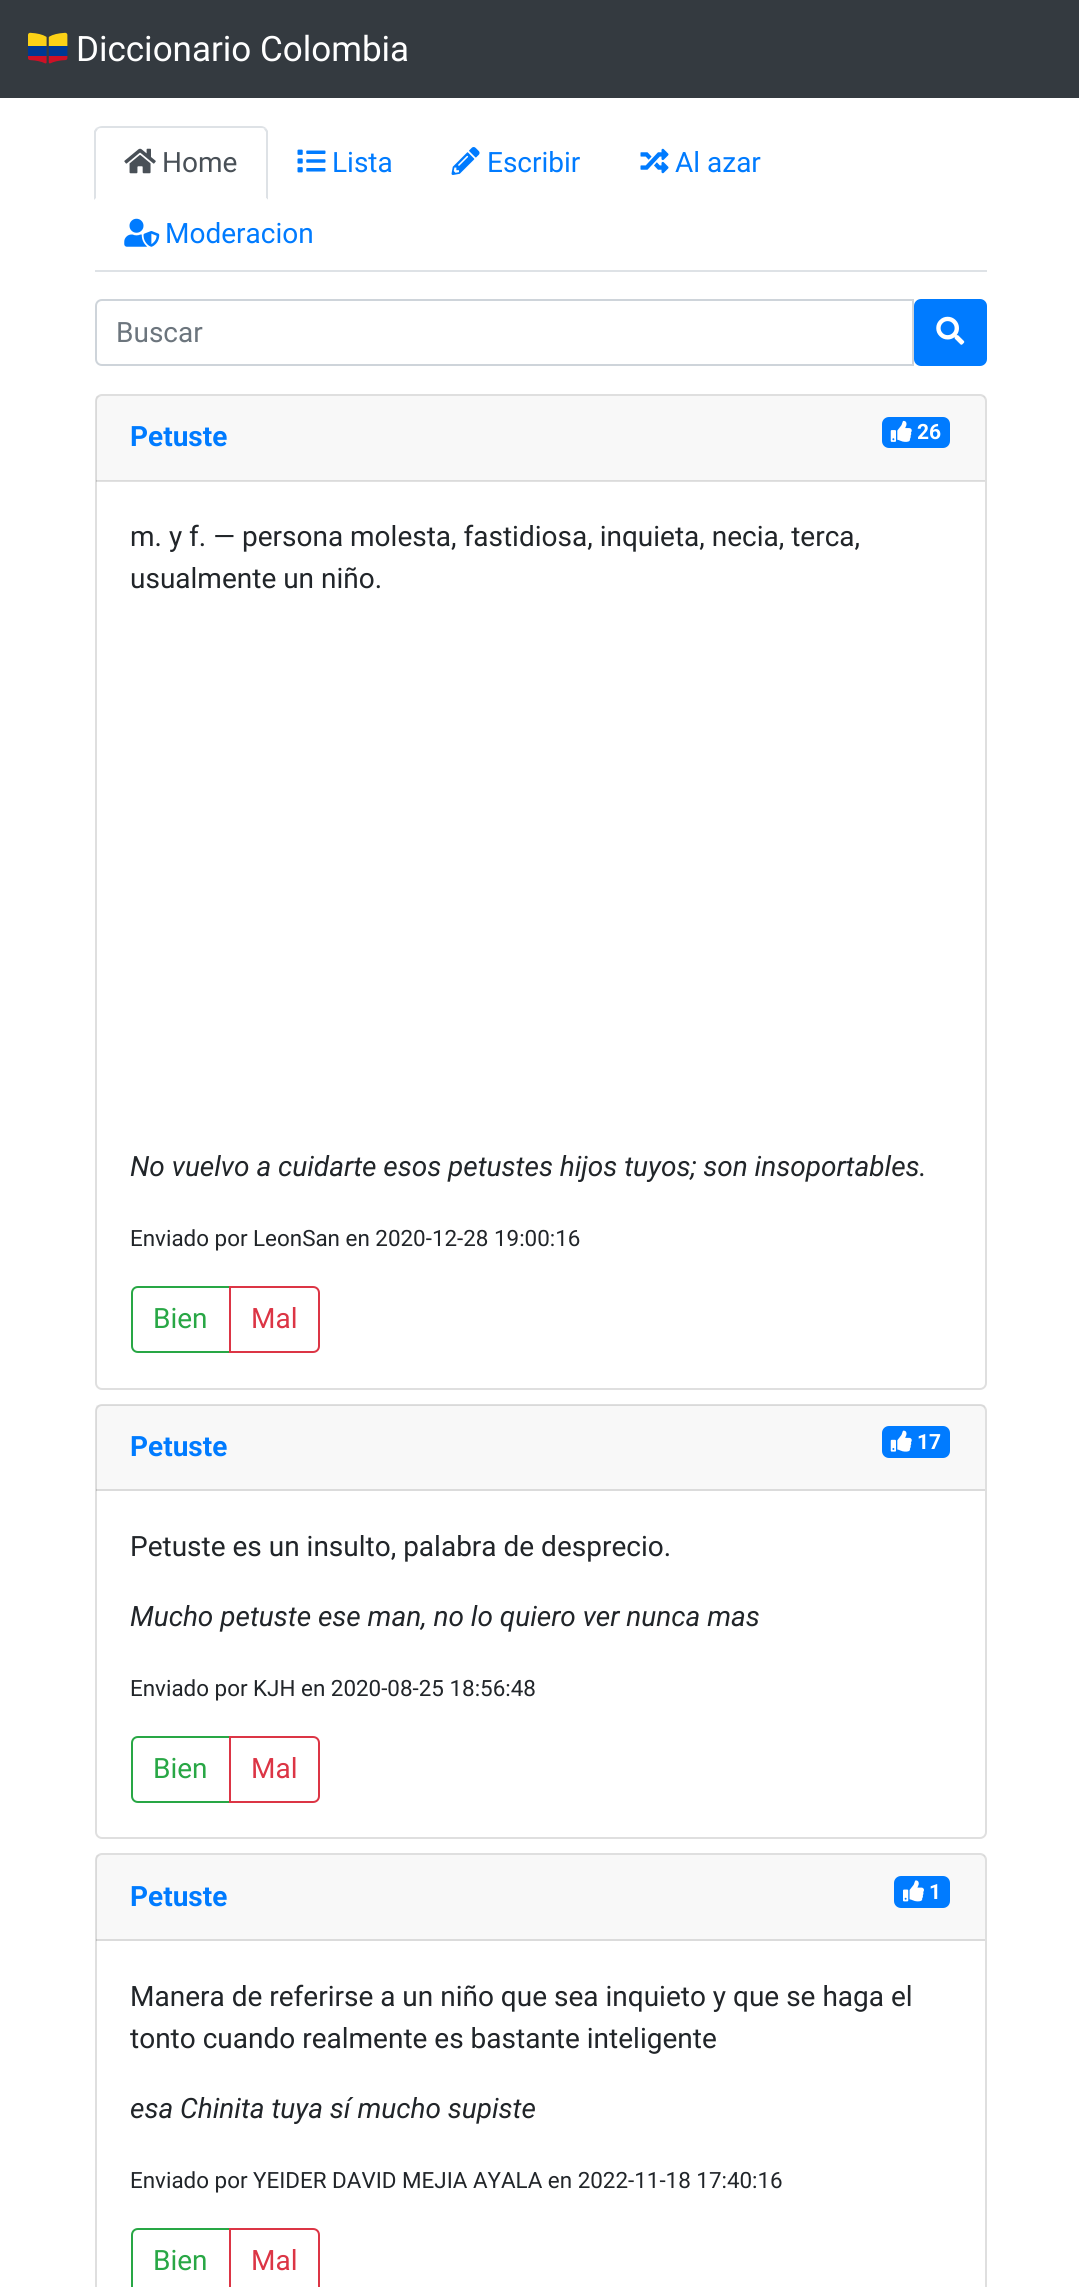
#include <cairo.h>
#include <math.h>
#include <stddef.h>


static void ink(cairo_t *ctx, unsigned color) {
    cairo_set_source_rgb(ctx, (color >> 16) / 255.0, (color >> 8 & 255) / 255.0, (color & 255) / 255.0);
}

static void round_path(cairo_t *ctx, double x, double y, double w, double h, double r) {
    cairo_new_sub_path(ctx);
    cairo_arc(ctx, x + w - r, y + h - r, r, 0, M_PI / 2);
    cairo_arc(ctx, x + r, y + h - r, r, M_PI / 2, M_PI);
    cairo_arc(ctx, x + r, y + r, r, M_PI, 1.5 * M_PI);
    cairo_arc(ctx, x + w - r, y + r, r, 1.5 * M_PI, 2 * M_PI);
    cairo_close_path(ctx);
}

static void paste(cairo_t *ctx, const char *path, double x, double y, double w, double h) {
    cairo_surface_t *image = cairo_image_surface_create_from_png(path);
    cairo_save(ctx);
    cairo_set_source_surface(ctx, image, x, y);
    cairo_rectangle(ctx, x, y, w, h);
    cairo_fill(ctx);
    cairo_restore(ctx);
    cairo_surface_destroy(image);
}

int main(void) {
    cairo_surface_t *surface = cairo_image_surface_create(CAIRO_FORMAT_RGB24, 1079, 2287);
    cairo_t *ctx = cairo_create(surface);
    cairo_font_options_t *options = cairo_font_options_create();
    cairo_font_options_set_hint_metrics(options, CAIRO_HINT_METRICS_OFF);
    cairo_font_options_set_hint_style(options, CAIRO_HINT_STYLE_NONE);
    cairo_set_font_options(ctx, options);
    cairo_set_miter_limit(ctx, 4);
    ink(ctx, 0xFFFFFF);
    cairo_paint(ctx);
    ink(ctx, 0x343A40);
    cairo_rectangle(ctx, 0, 0, 1079, 98);
    cairo_fill(ctx);
    paste(ctx, "media/1.png", 28, 32, 40, 32);
    cairo_select_font_face(ctx, "Roboto", CAIRO_FONT_SLANT_NORMAL, CAIRO_FONT_WEIGHT_NORMAL);
    cairo_set_font_size(ctx, 35);
    ink(ctx, 0xFFFFFF);
    cairo_move_to(ctx, 76, 61);
    cairo_show_text(ctx, "Diccionario Colombia");
    ink(ctx, 0xDEE2E6);
    cairo_rectangle(ctx, 95, 270, 892, 2);
    cairo_fill(ctx);
    cairo_new_path(ctx);
    cairo_move_to(ctx, 102, 126);
    cairo_curve_to(ctx, 100, 126, 98, 127, 96, 128);
    cairo_line_to(ctx, 98, 129);
    cairo_curve_to(ctx, 99, 128, 100, 128, 102, 128);
    cairo_line_to(ctx, 261, 128);
    cairo_curve_to(ctx, 262, 128, 264, 128, 264, 129);
    cairo_line_to(ctx, 266, 128);
    cairo_curve_to(ctx, 265, 127, 263, 126, 261, 126);
    cairo_close_path(ctx);
    cairo_fill(ctx);
    cairo_new_path(ctx);
    cairo_move_to(ctx, 266, 128);
    cairo_line_to(ctx, 268, 131);
    cairo_line_to(ctx, 268, 200);
    cairo_line_to(ctx, 266, 198);
    cairo_line_to(ctx, 266, 132);
    cairo_line_to(ctx, 264, 129);
    cairo_close_path(ctx);
    cairo_fill(ctx);
    ink(ctx, 0xFFFFFF);
    cairo_new_path(ctx);
    cairo_move_to(ctx, 268, 200);
    cairo_line_to(ctx, 266, 198);
    cairo_line_to(ctx, 96, 198);
    cairo_line_to(ctx, 94, 200);
    cairo_close_path(ctx);
    cairo_fill(ctx);
    ink(ctx, 0xDEE2E6);
    cairo_new_path(ctx);
    cairo_move_to(ctx, 94, 200);
    cairo_line_to(ctx, 94, 131);
    cairo_line_to(ctx, 96, 128);
    cairo_line_to(ctx, 98, 129);
    cairo_line_to(ctx, 96, 132);
    cairo_line_to(ctx, 96, 198);
    cairo_close_path(ctx);
    cairo_fill(ctx);
    paste(ctx, "media/2.png", 124, 148, 32, 26);
    cairo_set_font_size(ctx, 28);
    ink(ctx, 0x495057);
    cairo_move_to(ctx, 162, 172);
    cairo_show_text(ctx, "Home");
    paste(ctx, "media/3.png", 297, 149, 29, 24);
    ink(ctx, 0x007BFF);
    cairo_move_to(ctx, 332, 172);
    cairo_show_text(ctx, "Lista");
    paste(ctx, "media/4.png", 451, 147, 29, 28);
    cairo_move_to(ctx, 487, 172);
    cairo_show_text(ctx, "Escribir");
    paste(ctx, "media/5.png", 640, 148, 29, 26);
    cairo_move_to(ctx, 675, 172);
    cairo_show_text(ctx, "Al azar");
    paste(ctx, "media/6.png", 124, 218, 36, 29);
    cairo_move_to(ctx, 165, 243);
    cairo_show_text(ctx, "Moderacion");
    cairo_new_path(ctx);
    cairo_move_to(ctx, 102, 300);
    cairo_line_to(ctx, 913, 300);
    cairo_line_to(ctx, 913, 365);
    cairo_line_to(ctx, 102, 365);
    cairo_curve_to(ctx, 98.5, 365, 96, 362.5, 96, 359);
    cairo_line_to(ctx, 96, 306);
    cairo_curve_to(ctx, 96, 302.5, 98.5, 300, 102, 300);
    cairo_close_path(ctx);
    ink(ctx, 0xCED4DA);
    cairo_stroke(ctx);
    ink(ctx, 0x6C757D);
    cairo_move_to(ctx, 116, 342);
    cairo_show_text(ctx, "Buscar");
    ink(ctx, 0x007BFF);
    round_path(ctx, 915, 300, 71, 65, 6);
    cairo_fill_preserve(ctx);
    cairo_stroke(ctx);
    paste(ctx, "media/7.png", 936, 316, 29, 29);
    round_path(ctx, 96, 395, 890, 994, 6);
    ink(ctx, 0xDFDFDF);
    cairo_stroke(ctx);
    cairo_set_source_rgba(ctx, 0, 0, 0, 0.03);
    cairo_rectangle(ctx, 96, 396, 889, 85);
    cairo_fill(ctx);
    cairo_set_source_rgba(ctx, 0, 0, 0, 0.12);
    cairo_rectangle(ctx, 96, 480, 889, 2);
    cairo_fill(ctx);
    cairo_select_font_face(ctx, "Roboto", CAIRO_FONT_SLANT_NORMAL, CAIRO_FONT_WEIGHT_BOLD);
    ink(ctx, 0x007BFF);
    cairo_move_to(ctx, 130, 446);
    cairo_show_text(ctx, "Petuste");
    round_path(ctx, 882, 417, 68, 31, 7);
    cairo_fill(ctx);
    paste(ctx, "media/8.png", 890, 420, 22, 22);
    cairo_set_font_size(ctx, 21);
    ink(ctx, 0xFFFFFF);
    cairo_move_to(ctx, 917, 439);
    cairo_show_text(ctx, "26");
    cairo_select_font_face(ctx, "Roboto", CAIRO_FONT_SLANT_NORMAL, CAIRO_FONT_WEIGHT_NORMAL);
    cairo_set_font_size(ctx, 28);
    ink(ctx, 0x212529);
    cairo_move_to(ctx, 130, 546);
    cairo_show_text(ctx, "m. y f. — persona molesta, fastidiosa, inquieta, necia, terca,");
    cairo_move_to(ctx, 130, 588);
    cairo_show_text(ctx, "usualmente un niño.");
    cairo_select_font_face(ctx, "Roboto", CAIRO_FONT_SLANT_ITALIC, CAIRO_FONT_WEIGHT_NORMAL);
    cairo_move_to(ctx, 130, 1176);
    cairo_show_text(ctx, "No vuelvo a cuidarte esos petustes hijos tuyos; son insoportables.");
    cairo_select_font_face(ctx, "Roboto", CAIRO_FONT_SLANT_NORMAL, CAIRO_FONT_WEIGHT_NORMAL);
    cairo_set_font_size(ctx, 22.4);
    cairo_move_to(ctx, 130, 1246);
    cairo_show_text(ctx, "Enviado por LeonSan en 2020-12-28 19:00:16");
    cairo_new_path(ctx);
    cairo_move_to(ctx, 138, 1287);
    cairo_line_to(ctx, 230, 1287);
    cairo_line_to(ctx, 230, 1352);
    cairo_line_to(ctx, 138, 1352);
    cairo_curve_to(ctx, 134.5, 1352, 132, 1349.5, 132, 1346);
    cairo_line_to(ctx, 132, 1293);
    cairo_curve_to(ctx, 132, 1289.5, 134.5, 1287, 138, 1287);
    cairo_close_path(ctx);
    ink(ctx, 0x28A745);
    cairo_stroke(ctx);
    cairo_set_font_size(ctx, 28);
    cairo_move_to(ctx, 153, 1328);
    cairo_show_text(ctx, "Bien");
    cairo_new_path(ctx);
    cairo_move_to(ctx, 230, 1287);
    cairo_line_to(ctx, 313, 1287);
    cairo_curve_to(ctx, 316.5, 1287, 319, 1289.5, 319, 1293);
    cairo_line_to(ctx, 319, 1346);
    cairo_curve_to(ctx, 319, 1349.5, 316.5, 1352, 313, 1352);
    cairo_line_to(ctx, 230, 1352);
    cairo_close_path(ctx);
    ink(ctx, 0xDC3545);
    cairo_stroke(ctx);
    cairo_move_to(ctx, 251, 1328);
    cairo_show_text(ctx, "Mal");
    round_path(ctx, 96, 1405, 890, 433, 6);
    ink(ctx, 0xDFDFDF);
    cairo_stroke(ctx);
    cairo_set_source_rgba(ctx, 0, 0, 0, 0.03);
    cairo_rectangle(ctx, 96, 1405, 889, 86);
    cairo_fill(ctx);
    cairo_set_source_rgba(ctx, 0, 0, 0, 0.12);
    cairo_rectangle(ctx, 96, 1489, 889, 2);
    cairo_fill(ctx);
    cairo_select_font_face(ctx, "Roboto", CAIRO_FONT_SLANT_NORMAL, CAIRO_FONT_WEIGHT_BOLD);
    ink(ctx, 0x007BFF);
    cairo_move_to(ctx, 130, 1456);
    cairo_show_text(ctx, "Petuste");
    round_path(ctx, 882, 1426, 68, 32, 7);
    cairo_fill(ctx);
    paste(ctx, "media/9.png", 890, 1430, 22, 22);
    cairo_set_font_size(ctx, 21);
    ink(ctx, 0xFFFFFF);
    cairo_move_to(ctx, 917, 1449);
    cairo_show_text(ctx, "17");
    cairo_select_font_face(ctx, "Roboto", CAIRO_FONT_SLANT_NORMAL, CAIRO_FONT_WEIGHT_NORMAL);
    cairo_set_font_size(ctx, 28);
    ink(ctx, 0x212529);
    cairo_move_to(ctx, 130, 1556);
    cairo_show_text(ctx, "Petuste es un insulto, palabra de desprecio.");
    cairo_select_font_face(ctx, "Roboto", CAIRO_FONT_SLANT_ITALIC, CAIRO_FONT_WEIGHT_NORMAL);
    cairo_move_to(ctx, 130, 1626);
    cairo_show_text(ctx, "Mucho petuste ese man, no lo quiero ver nunca mas");
    cairo_select_font_face(ctx, "Roboto", CAIRO_FONT_SLANT_NORMAL, CAIRO_FONT_WEIGHT_NORMAL);
    cairo_set_font_size(ctx, 22.4);
    cairo_move_to(ctx, 130, 1696);
    cairo_show_text(ctx, "Enviado por KJH en 2020-08-25 18:56:48");
    cairo_new_path(ctx);
    cairo_move_to(ctx, 138, 1737);
    cairo_line_to(ctx, 230, 1737);
    cairo_line_to(ctx, 230, 1802);
    cairo_line_to(ctx, 138, 1802);
    cairo_curve_to(ctx, 134.5, 1802, 132, 1799.5, 132, 1796);
    cairo_line_to(ctx, 132, 1743);
    cairo_curve_to(ctx, 132, 1739.5, 134.5, 1737, 138, 1737);
    cairo_close_path(ctx);
    ink(ctx, 0x28A745);
    cairo_stroke(ctx);
    cairo_set_font_size(ctx, 28);
    cairo_move_to(ctx, 153, 1778);
    cairo_show_text(ctx, "Bien");
    cairo_new_path(ctx);
    cairo_move_to(ctx, 230, 1737);
    cairo_line_to(ctx, 313, 1737);
    cairo_curve_to(ctx, 316.5, 1737, 319, 1739.5, 319, 1743);
    cairo_line_to(ctx, 319, 1796);
    cairo_curve_to(ctx, 319, 1799.5, 316.5, 1802, 313, 1802);
    cairo_line_to(ctx, 230, 1802);
    cairo_close_path(ctx);
    ink(ctx, 0xDC3545);
    cairo_stroke(ctx);
    cairo_move_to(ctx, 251, 1778);
    cairo_show_text(ctx, "Mal");
    round_path(ctx, 96, 1854, 890, 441, 6);
    ink(ctx, 0xDFDFDF);
    cairo_stroke(ctx);
    cairo_set_source_rgba(ctx, 0, 0, 0, 0.03);
    cairo_rectangle(ctx, 96, 1855, 889, 86);
    cairo_fill(ctx);
    cairo_set_source_rgba(ctx, 0, 0, 0, 0.12);
    cairo_rectangle(ctx, 96, 1939, 889, 2);
    cairo_fill(ctx);
    cairo_select_font_face(ctx, "Roboto", CAIRO_FONT_SLANT_NORMAL, CAIRO_FONT_WEIGHT_BOLD);
    ink(ctx, 0x007BFF);
    cairo_move_to(ctx, 130, 1906);
    cairo_show_text(ctx, "Petuste");
    round_path(ctx, 894, 1876, 56, 32, 7);
    cairo_fill(ctx);
    paste(ctx, "media/10.png", 903, 1880, 21, 22);
    cairo_set_font_size(ctx, 21);
    ink(ctx, 0xFFFFFF);
    cairo_move_to(ctx, 929, 1899);
    cairo_show_text(ctx, "1");
    cairo_select_font_face(ctx, "Roboto", CAIRO_FONT_SLANT_NORMAL, CAIRO_FONT_WEIGHT_NORMAL);
    cairo_set_font_size(ctx, 28);
    ink(ctx, 0x212529);
    cairo_move_to(ctx, 130, 2006);
    cairo_show_text(ctx, "Manera de referirse a un niño que sea inquieto y que se haga el");
    cairo_move_to(ctx, 130, 2048);
    cairo_show_text(ctx, "tonto cuando realmente es bastante inteligente");
    cairo_select_font_face(ctx, "Roboto", CAIRO_FONT_SLANT_ITALIC, CAIRO_FONT_WEIGHT_NORMAL);
    cairo_move_to(ctx, 130, 2118);
    cairo_show_text(ctx, "esa Chinita tuya sí mucho supiste");
    cairo_select_font_face(ctx, "Roboto", CAIRO_FONT_SLANT_NORMAL, CAIRO_FONT_WEIGHT_NORMAL);
    cairo_set_font_size(ctx, 22.4);
    cairo_move_to(ctx, 130, 2188);
    cairo_show_text(ctx, "Enviado por YEIDER DAVID MEJIA AYALA en 2022-11-18 17:40:16");
    cairo_new_path(ctx);
    cairo_move_to(ctx, 138, 2229);
    cairo_line_to(ctx, 230, 2229);
    cairo_line_to(ctx, 230, 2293);
    cairo_line_to(ctx, 138, 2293);
    cairo_curve_to(ctx, 134.5, 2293, 132, 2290.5, 132, 2287);
    cairo_line_to(ctx, 132, 2235);
    cairo_curve_to(ctx, 132, 2231.5, 134.5, 2229, 138, 2229);
    cairo_close_path(ctx);
    ink(ctx, 0x28A745);
    cairo_stroke(ctx);
    cairo_set_font_size(ctx, 28);
    cairo_move_to(ctx, 153, 2270);
    cairo_show_text(ctx, "Bien");
    cairo_new_path(ctx);
    cairo_move_to(ctx, 230, 2229);
    cairo_line_to(ctx, 313, 2229);
    cairo_curve_to(ctx, 316.5, 2229, 319, 2231.5, 319, 2235);
    cairo_line_to(ctx, 319, 2287);
    cairo_curve_to(ctx, 319, 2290.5, 316.5, 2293, 313, 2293);
    cairo_line_to(ctx, 230, 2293);
    cairo_close_path(ctx);
    ink(ctx, 0xDC3545);
    cairo_stroke(ctx);
    cairo_move_to(ctx, 251, 2270);
    cairo_show_text(ctx, "Mal");
    cairo_surface_write_to_png(surface, "image.png");
    cairo_font_options_destroy(options);
    cairo_destroy(ctx);
    cairo_surface_destroy(surface);
    return 0;
}
